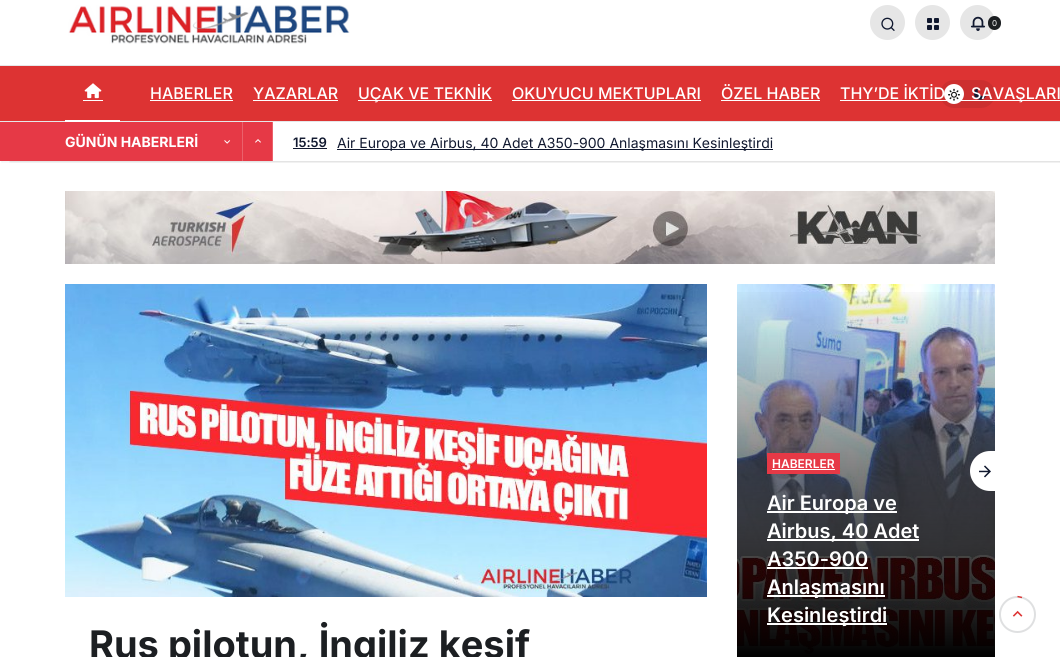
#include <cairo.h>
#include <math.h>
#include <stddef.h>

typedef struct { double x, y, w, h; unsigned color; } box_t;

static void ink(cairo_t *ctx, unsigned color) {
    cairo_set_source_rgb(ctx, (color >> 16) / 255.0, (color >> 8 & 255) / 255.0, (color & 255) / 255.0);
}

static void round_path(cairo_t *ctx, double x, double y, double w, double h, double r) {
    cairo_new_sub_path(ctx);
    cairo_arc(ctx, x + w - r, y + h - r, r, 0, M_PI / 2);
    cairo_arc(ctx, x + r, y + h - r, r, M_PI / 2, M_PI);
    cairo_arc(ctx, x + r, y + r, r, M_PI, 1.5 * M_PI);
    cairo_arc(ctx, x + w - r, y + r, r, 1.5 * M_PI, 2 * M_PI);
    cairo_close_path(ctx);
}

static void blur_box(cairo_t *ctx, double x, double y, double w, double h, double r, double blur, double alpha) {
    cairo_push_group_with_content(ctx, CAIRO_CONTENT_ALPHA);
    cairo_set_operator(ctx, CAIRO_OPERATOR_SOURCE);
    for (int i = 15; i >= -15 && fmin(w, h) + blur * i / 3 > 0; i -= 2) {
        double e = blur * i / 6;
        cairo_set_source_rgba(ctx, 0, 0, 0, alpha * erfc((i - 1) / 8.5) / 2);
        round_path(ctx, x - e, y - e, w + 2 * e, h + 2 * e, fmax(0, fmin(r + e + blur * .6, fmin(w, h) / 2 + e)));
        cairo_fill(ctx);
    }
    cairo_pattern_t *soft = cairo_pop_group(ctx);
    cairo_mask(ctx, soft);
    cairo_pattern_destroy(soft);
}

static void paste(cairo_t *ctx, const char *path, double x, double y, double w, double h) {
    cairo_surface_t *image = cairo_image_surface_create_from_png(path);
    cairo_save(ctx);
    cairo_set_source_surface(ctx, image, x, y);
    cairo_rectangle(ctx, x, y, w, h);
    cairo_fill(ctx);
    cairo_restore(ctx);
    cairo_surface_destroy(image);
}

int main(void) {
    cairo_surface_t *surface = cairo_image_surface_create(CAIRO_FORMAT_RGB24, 1060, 657);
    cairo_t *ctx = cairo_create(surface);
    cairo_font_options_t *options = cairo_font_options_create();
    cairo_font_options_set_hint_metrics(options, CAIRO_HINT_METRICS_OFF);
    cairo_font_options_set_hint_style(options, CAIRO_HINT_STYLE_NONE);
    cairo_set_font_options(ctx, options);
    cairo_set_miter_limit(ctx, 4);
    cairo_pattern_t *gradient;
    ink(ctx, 0xFFFFFF);
    cairo_paint(ctx);
    ink(ctx, 0xE6E7E9);
    cairo_rectangle(ctx, 0, 65, 1060, 1);
    cairo_fill(ctx);
    paste(ctx, "media/1.png", 68, 5, 282, 39);
    ink(ctx, 0xE6E6E6);
    cairo_arc(ctx, 887.5, 22.5, 17.5, 0, 2 * M_PI);
    cairo_fill(ctx);
    paste(ctx, "media/2.png", 881, 17, 14, 14);
    cairo_arc(ctx, 932.5, 22.5, 17.5, 0, 2 * M_PI);
    cairo_fill(ctx);
    paste(ctx, "media/3.png", 927, 18, 12, 12);
    cairo_arc(ctx, 977.5, 22.5, 17.5, 0, 2 * M_PI);
    cairo_fill(ctx);
    paste(ctx, "media/4.png", 970, 16, 16, 15);
    ink(ctx, 0x1C1F22);
    round_path(ctx, 988, 16, 13, 14, 6.5);
    cairo_fill(ctx);
    cairo_select_font_face(ctx, "Inter", CAIRO_FONT_SLANT_NORMAL, CAIRO_FONT_WEIGHT_NORMAL);
    cairo_set_font_size(ctx, 8);
    ink(ctx, 0xFFFFFF);
    cairo_move_to(ctx, 992, 26);
    cairo_show_text(ctx, "0");
    cairo_save(ctx);
    cairo_rectangle(ctx, 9, 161, 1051, 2);
    cairo_clip(ctx);
    ink(ctx, 0x000000);
    blur_box(ctx, 10, 122, 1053, 40, 0, 1, 0.1);
    cairo_restore(ctx);
    cairo_save(ctx);
    cairo_rectangle(ctx, 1, 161, 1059, 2);
    cairo_clip(ctx);
    ink(ctx, 0x000000);
    blur_box(ctx, 1, 121, 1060, 40, 0, 2.5, 0.1);
    cairo_restore(ctx);
    ink(ctx, 0xDD3333);
    cairo_rectangle(ctx, 0, 66, 1060, 55);
    cairo_fill(ctx);
    paste(ctx, "media/5.png", 84, 83, 18, 16);
    {
        static const box_t items[] = {
            {83, 100, 20, 1, 0xFFFFFF},
            {0, 121, 1060, 1, 0xE6E7E9},
            {65, 120, 55, 2, 0xFFFFFF},
        };
        for (size_t i = 0; i < sizeof items / sizeof *items; i++) {
            ink(ctx, items[i].color);
            cairo_rectangle(ctx, items[i].x, items[i].y, items[i].w, items[i].h);
            cairo_fill(ctx);
        }
    }
    ink(ctx, 0xCC2F2F);
    round_path(ctx, 940, 80, 55, 28, 14);
    cairo_fill(ctx);
    ink(ctx, 0xFFFFFF);
    cairo_rectangle(ctx, 840, 100, 220, 1);
    cairo_fill(ctx);
    cairo_arc(ctx, 954, 94, 10, 0, 2 * M_PI);
    cairo_fill(ctx);
    paste(ctx, "media/6.png", 948, 88, 12, 13);
    paste(ctx, "media/7.png", 974, 87, 12, 13);
    cairo_select_font_face(ctx, "Inter Medium", CAIRO_FONT_SLANT_NORMAL, CAIRO_FONT_WEIGHT_NORMAL);
    cairo_set_font_size(ctx, 16);
    cairo_move_to(ctx, 150, 99);
    cairo_show_text(ctx, "HABERLER");
    cairo_rectangle(ctx, 150, 100, 83, 1);
    cairo_fill(ctx);
    cairo_move_to(ctx, 253, 99);
    cairo_show_text(ctx, "YAZARLAR");
    cairo_rectangle(ctx, 253, 100, 85, 1);
    cairo_fill(ctx);
    cairo_rectangle(ctx, 358, 100, 134, 1);
    cairo_fill(ctx);
    cairo_move_to(ctx, 358, 99);
    cairo_show_text(ctx, "UÇAK VE TEKNİK");
    cairo_move_to(ctx, 512, 99);
    cairo_show_text(ctx, "OKUYUCU MEKTUPLARI");
    cairo_rectangle(ctx, 512, 100, 189, 1);
    cairo_fill(ctx);
    cairo_move_to(ctx, 721, 99);
    cairo_show_text(ctx, "ÖZEL HABER");
    cairo_rectangle(ctx, 721, 100, 99, 1);
    cairo_fill(ctx);
    cairo_move_to(ctx, 840, 99);
    cairo_show_text(ctx, "THY’DE İKTİD");
    cairo_move_to(ctx, 971, 99);
    cairo_show_text(ctx, "SAVAŞLARI");
    ink(ctx, 0xE63946);
    cairo_rectangle(ctx, 0, 122, 242, 39);
    cairo_fill(ctx);
    cairo_select_font_face(ctx, "Inter", CAIRO_FONT_SLANT_NORMAL, CAIRO_FONT_WEIGHT_BOLD);
    cairo_set_font_size(ctx, 14);
    ink(ctx, 0xFFFFFF);
    cairo_move_to(ctx, 65, 147);
    cairo_show_text(ctx, "GÜNÜN HABERLERİ");
    ink(ctx, 0xEB616B);
    cairo_rectangle(ctx, 242, 122, 1, 39);
    cairo_fill(ctx);
    paste(ctx, "media/8.png", 224, 140, 7, 4);
    ink(ctx, 0xE63946);
    cairo_rectangle(ctx, 243, 122, 29, 39);
    cairo_fill(ctx);
    ink(ctx, 0xEB616B);
    cairo_rectangle(ctx, 272, 122, 1, 39);
    cairo_fill(ctx);
    paste(ctx, "media/9.png", 255, 139, 6, 4);
    cairo_select_font_face(ctx, "Inter SemiBold", CAIRO_FONT_SLANT_NORMAL, CAIRO_FONT_WEIGHT_NORMAL);
    cairo_set_font_size(ctx, 13);
    ink(ctx, 0x10182F);
    cairo_move_to(ctx, 293, 147);
    cairo_show_text(ctx, "15:59");
    cairo_rectangle(ctx, 293, 148, 34, 1);
    cairo_fill(ctx);
    cairo_rectangle(ctx, 337, 149, 436, 1);
    cairo_fill(ctx);
    cairo_select_font_face(ctx, "Inter", CAIRO_FONT_SLANT_NORMAL, CAIRO_FONT_WEIGHT_NORMAL);
    cairo_set_font_size(ctx, 14);
    cairo_move_to(ctx, 337, 148);
    cairo_show_text(ctx, "Air Europa ve Airbus, 40 Adet A350-900 Anlaşmasını Kesinleştirdi");
    paste(ctx, "media/10.png", 65, 191, 930, 73);
    paste(ctx, "media/11.png", 737, 284, 258, 373);
    gradient = cairo_pattern_create_linear(866, 284, 866, 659);
    cairo_pattern_add_color_stop_rgba(gradient, 0, 0, 0, 0, 0);
    cairo_pattern_add_color_stop_rgba(gradient, 1, 0, 0, 0, 1);
    cairo_set_source(ctx, gradient);
    cairo_pattern_destroy(gradient);
    cairo_rectangle(ctx, 737, 292, 258, 365);
    cairo_fill(ctx);
    ink(ctx, 0xE63946);
    cairo_rectangle(ctx, 767, 453, 73, 21);
    cairo_fill(ctx);
    cairo_select_font_face(ctx, "Inter SemiBold", CAIRO_FONT_SLANT_NORMAL, CAIRO_FONT_WEIGHT_NORMAL);
    cairo_set_font_size(ctx, 12);
    ink(ctx, 0xFFFFFF);
    cairo_move_to(ctx, 772, 468);
    cairo_show_text(ctx, "HABERLER");
    cairo_rectangle(ctx, 772, 469, 63, 1);
    cairo_fill(ctx);
    cairo_rectangle(ctx, 767, 511, 130, 2);
    cairo_fill(ctx);
    cairo_set_font_size(ctx, 20);
    cairo_move_to(ctx, 767, 510);
    cairo_show_text(ctx, "Air Europa ve");
    cairo_rectangle(ctx, 767, 539, 152, 2);
    cairo_fill(ctx);
    cairo_move_to(ctx, 767, 538);
    cairo_show_text(ctx, "Airbus, 40 Adet");
    cairo_move_to(ctx, 767, 566);
    cairo_show_text(ctx, "A350-900");
    cairo_rectangle(ctx, 767, 567, 101, 2);
    cairo_fill(ctx);
    cairo_rectangle(ctx, 767, 595, 118, 2);
    cairo_fill(ctx);
    cairo_move_to(ctx, 767, 594);
    cairo_show_text(ctx, "Anlaşmasını");
    cairo_rectangle(ctx, 767, 623, 120, 2);
    cairo_fill(ctx);
    cairo_move_to(ctx, 767, 622);
    cairo_show_text(ctx, "Kesinleştirdi");
    cairo_new_path(ctx);
    cairo_move_to(ctx, 990, 451);
    cairo_line_to(ctx, 995, 451);
    cairo_line_to(ctx, 995, 491);
    cairo_line_to(ctx, 990, 491);
    cairo_curve_to(ctx, 979, 491, 970, 482, 970, 471);
    cairo_curve_to(ctx, 970, 460, 979, 451, 990, 451);
    cairo_close_path(ctx);
    cairo_fill(ctx);
    paste(ctx, "media/12.png", 979, 465, 12, 13);
    paste(ctx, "media/13.png", 65, 284, 642, 313);
    cairo_select_font_face(ctx, "Inter", CAIRO_FONT_SLANT_NORMAL, CAIRO_FONT_WEIGHT_BOLD);
    cairo_set_font_size(ctx, 38);
    ink(ctx, 0x1C1F22);
    cairo_move_to(ctx, 89, 658);
    cairo_show_text(ctx, "Rus pilotun, İngiliz keşif");
    cairo_new_path(ctx);
    cairo_arc(ctx, 1017.5, 614.5, 17.5, 0, 2 * M_PI);
    ink(ctx, 0xDFE0E1);
    cairo_stroke(ctx);
    cairo_new_path(ctx);
    cairo_move_to(ctx, 1017.5, 596.5);
    cairo_line_to(ctx, 1022, 597.5);
    ink(ctx, 0xDD3333);
    cairo_set_line_width(ctx, 1.4);
    cairo_stroke(ctx);
    paste(ctx, "media/14.png", 1012, 610, 11, 7);
    cairo_surface_write_to_png(surface, "image.png");
    cairo_font_options_destroy(options);
    cairo_destroy(ctx);
    cairo_surface_destroy(surface);
    return 0;
}
